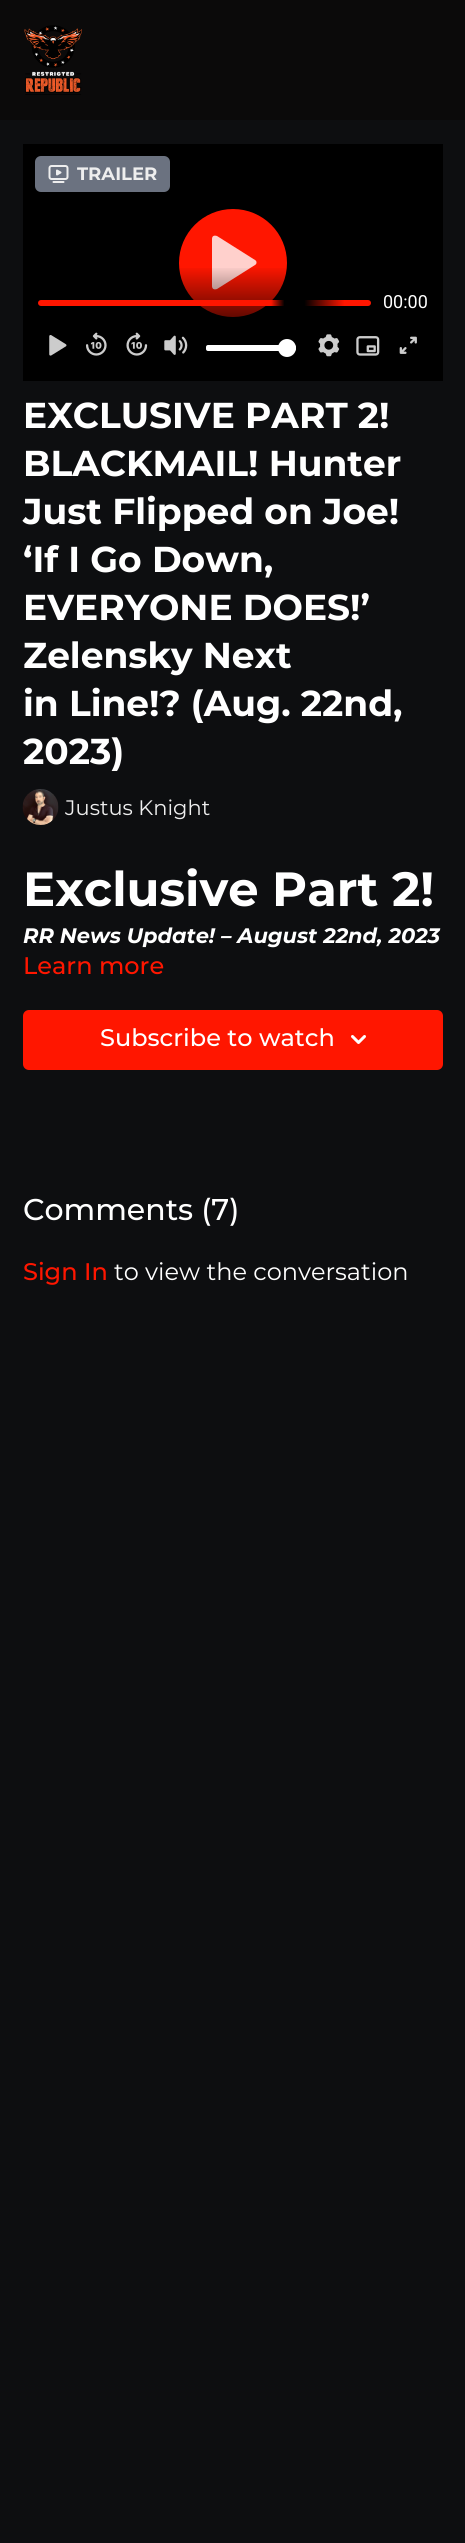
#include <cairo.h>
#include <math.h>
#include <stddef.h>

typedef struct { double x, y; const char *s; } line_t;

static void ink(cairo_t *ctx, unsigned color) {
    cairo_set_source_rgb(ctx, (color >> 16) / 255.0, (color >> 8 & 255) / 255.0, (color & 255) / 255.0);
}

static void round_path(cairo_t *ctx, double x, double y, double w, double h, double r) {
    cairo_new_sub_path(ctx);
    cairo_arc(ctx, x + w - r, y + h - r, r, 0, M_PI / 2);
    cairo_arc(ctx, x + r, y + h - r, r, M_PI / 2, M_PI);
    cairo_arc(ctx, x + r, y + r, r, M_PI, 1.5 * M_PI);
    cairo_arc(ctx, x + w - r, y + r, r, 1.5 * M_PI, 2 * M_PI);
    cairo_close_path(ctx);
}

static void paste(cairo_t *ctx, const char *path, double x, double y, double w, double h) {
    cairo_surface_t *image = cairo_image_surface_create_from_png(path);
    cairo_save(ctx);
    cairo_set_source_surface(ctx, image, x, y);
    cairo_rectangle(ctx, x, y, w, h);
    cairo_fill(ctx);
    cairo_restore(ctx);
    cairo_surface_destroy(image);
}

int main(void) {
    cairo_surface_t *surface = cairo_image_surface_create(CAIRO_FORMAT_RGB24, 465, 2543);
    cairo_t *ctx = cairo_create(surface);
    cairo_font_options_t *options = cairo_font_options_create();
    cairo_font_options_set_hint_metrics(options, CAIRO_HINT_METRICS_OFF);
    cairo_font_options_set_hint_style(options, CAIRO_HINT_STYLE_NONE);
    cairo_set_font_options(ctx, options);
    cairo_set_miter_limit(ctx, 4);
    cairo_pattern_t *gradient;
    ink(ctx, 0x0D0E10);
    cairo_paint(ctx);
    ink(ctx, 0x0B0A0A);
    cairo_rectangle(ctx, 0, 0, 465, 120);
    cairo_fill(ctx);
    paste(ctx, "media/1.png", 24, 25, 58, 70);
    ink(ctx, 0x000000);
    cairo_rectangle(ctx, 23, 144, 420, 237);
    cairo_fill(ctx);
    ink(ctx, 0x6B7280);
    round_path(ctx, 35, 156, 135, 36, 6);
    cairo_fill(ctx);
    paste(ctx, "media/2.png", 48, 165, 21, 18);
    cairo_select_font_face(ctx, "Montserrat", CAIRO_FONT_SLANT_NORMAL, CAIRO_FONT_WEIGHT_BOLD);
    cairo_set_font_size(ctx, 18);
    ink(ctx, 0xEEEEEE);
    cairo_move_to(ctx, 77, 180);
    cairo_show_text(ctx, "TRAILER");
    ink(ctx, 0xFF1600);
    cairo_new_path(ctx);
    cairo_arc(ctx, 233, 263, 54, 0, 2 * M_PI);
    cairo_fill(ctx);
    ink(ctx, 0xFFD0CC);
    cairo_new_path(ctx);
    cairo_move_to(ctx, 217, 236);
    cairo_curve_to(ctx, 214, 235, 212, 236, 212, 239);
    cairo_line_to(ctx, 212, 286);
    cairo_curve_to(ctx, 212, 289, 214, 290, 217, 289);
    cairo_line_to(ctx, 255, 265);
    cairo_curve_to(ctx, 257, 264, 257, 261, 255, 260);
    cairo_close_path(ctx);
    cairo_fill(ctx);
    gradient = cairo_pattern_create_linear(233, 381, 233, 261);
    cairo_pattern_add_color_stop_rgba(gradient, 0.54, 0, 0, 0, 0.6);
    cairo_pattern_add_color_stop_rgba(gradient, 0.96, 0, 0, 0, 0);
    cairo_set_source(ctx, gradient);
    cairo_pattern_destroy(gradient);
    cairo_rectangle(ctx, 179, 268, 108, 49);
    cairo_fill(ctx);
    gradient = cairo_pattern_create_linear(38, 306, 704, 306);
    cairo_pattern_add_color_stop_rgba(gradient, 0.35, 1, 0.086, 0, 1);
    cairo_pattern_add_color_stop_rgba(gradient, 0.37, 1, 0.086, 0, 0);
    cairo_pattern_add_color_stop_rgba(gradient, 0.4, 1, 0.086, 0, 0);
    cairo_pattern_add_color_stop_rgba(gradient, 0.46, 1, 0.086, 0, 1);
    cairo_pattern_add_color_stop_rgba(gradient, 1, 1, 0.086, 0, 1);
    cairo_set_source(ctx, gradient);
    cairo_pattern_destroy(gradient);
    round_path(ctx, 38, 300, 333, 6, 3);
    cairo_fill(ctx);
    cairo_select_font_face(ctx, "Roboto", CAIRO_FONT_SLANT_NORMAL, CAIRO_FONT_WEIGHT_NORMAL);
    ink(ctx, 0xFFFFFF);
    cairo_move_to(ctx, 383, 308);
    cairo_show_text(ctx, "00:00");
    paste(ctx, "media/3.png", 49, 335, 18, 21);
    paste(ctx, "media/4.png", 86, 332, 21, 24);
    paste(ctx, "media/5.png", 126, 332, 22, 24);
    paste(ctx, "media/6.png", 164, 335, 24, 20);
    round_path(ctx, 206, 345, 90, 6, 2);
    cairo_fill(ctx);
    cairo_arc(ctx, 287, 348, 9, 0, 2 * M_PI);
    cairo_fill(ctx);
    paste(ctx, "media/7.png", 318, 334, 22, 23);
    paste(ctx, "media/8.png", 356, 336, 24, 20);
    paste(ctx, "media/9.png", 399, 336, 18, 18);
    cairo_select_font_face(ctx, "Montserrat", CAIRO_FONT_SLANT_NORMAL, CAIRO_FONT_WEIGHT_BOLD);
    cairo_set_font_size(ctx, 36);
    {
        static const line_t items[] = {
            {23, 428, "EXCLUSIVE PART 2!"},
            {23, 476, "BLACKMAIL! Hunter"},
            {23, 524, "Just Flipped on Joe!"},
            {23, 572, "‘If I Go Down,"},
            {23, 620, "EVERYONE DOES!’"},
            {23, 668, "Zelensky Next"},
            {23, 716, "in Line!? (Aug. 22nd,"},
            {23, 764, "2023)"},
        };
        for (size_t i = 0; i < sizeof items / sizeof *items; i++) {
            cairo_move_to(ctx, items[i].x, items[i].y);
            cairo_show_text(ctx, items[i].s);
        }
    }
    paste(ctx, "media/10.png", 22, 789, 37, 36);
    cairo_select_font_face(ctx, "Montserrat", CAIRO_FONT_SLANT_NORMAL, CAIRO_FONT_WEIGHT_NORMAL);
    cairo_set_font_size(ctx, 21);
    ink(ctx, 0xEEEEEE);
    cairo_move_to(ctx, 65, 815);
    cairo_show_text(ctx, "Justus Knight");
    cairo_select_font_face(ctx, "Montserrat", CAIRO_FONT_SLANT_NORMAL, CAIRO_FONT_WEIGHT_BOLD);
    cairo_set_font_size(ctx, 48);
    ink(ctx, 0xFFFFFF);
    cairo_move_to(ctx, 23, 906);
    cairo_show_text(ctx, "Exclusive Part 2!");
    cairo_select_font_face(ctx, "Montserrat", CAIRO_FONT_SLANT_ITALIC, CAIRO_FONT_WEIGHT_BOLD);
    cairo_set_font_size(ctx, 21);
    cairo_move_to(ctx, 23, 943);
    cairo_show_text(ctx, "RR News Update! – August 22nd, 2023");
    cairo_select_font_face(ctx, "Montserrat Medium", CAIRO_FONT_SLANT_NORMAL, CAIRO_FONT_WEIGHT_NORMAL);
    cairo_set_font_size(ctx, 24);
    ink(ctx, 0xFF1600);
    cairo_move_to(ctx, 23, 974);
    cairo_show_text(ctx, "Learn more");
    round_path(ctx, 23, 1010, 420, 60, 6);
    cairo_fill(ctx);
    ink(ctx, 0xFFFFFF);
    cairo_move_to(ctx, 100, 1046);
    cairo_show_text(ctx, "Subscribe to watch");
    paste(ctx, "media/11.png", 351, 1035, 15, 9);
    cairo_set_font_size(ctx, 30);
    cairo_move_to(ctx, 23, 1220);
    cairo_show_text(ctx, "Comments (7)");
    cairo_set_font_size(ctx, 24);
    ink(ctx, 0xFF1600);
    cairo_move_to(ctx, 23, 1280);
    cairo_show_text(ctx, "Sign In");
    cairo_select_font_face(ctx, "Montserrat", CAIRO_FONT_SLANT_NORMAL, CAIRO_FONT_WEIGHT_NORMAL);
    ink(ctx, 0xFFFFFF);
    cairo_move_to(ctx, 114, 1280);
    cairo_show_text(ctx, "to view the conversation");
    cairo_surface_write_to_png(surface, "image.png");
    cairo_font_options_destroy(options);
    cairo_destroy(ctx);
    cairo_surface_destroy(surface);
    return 0;
}
